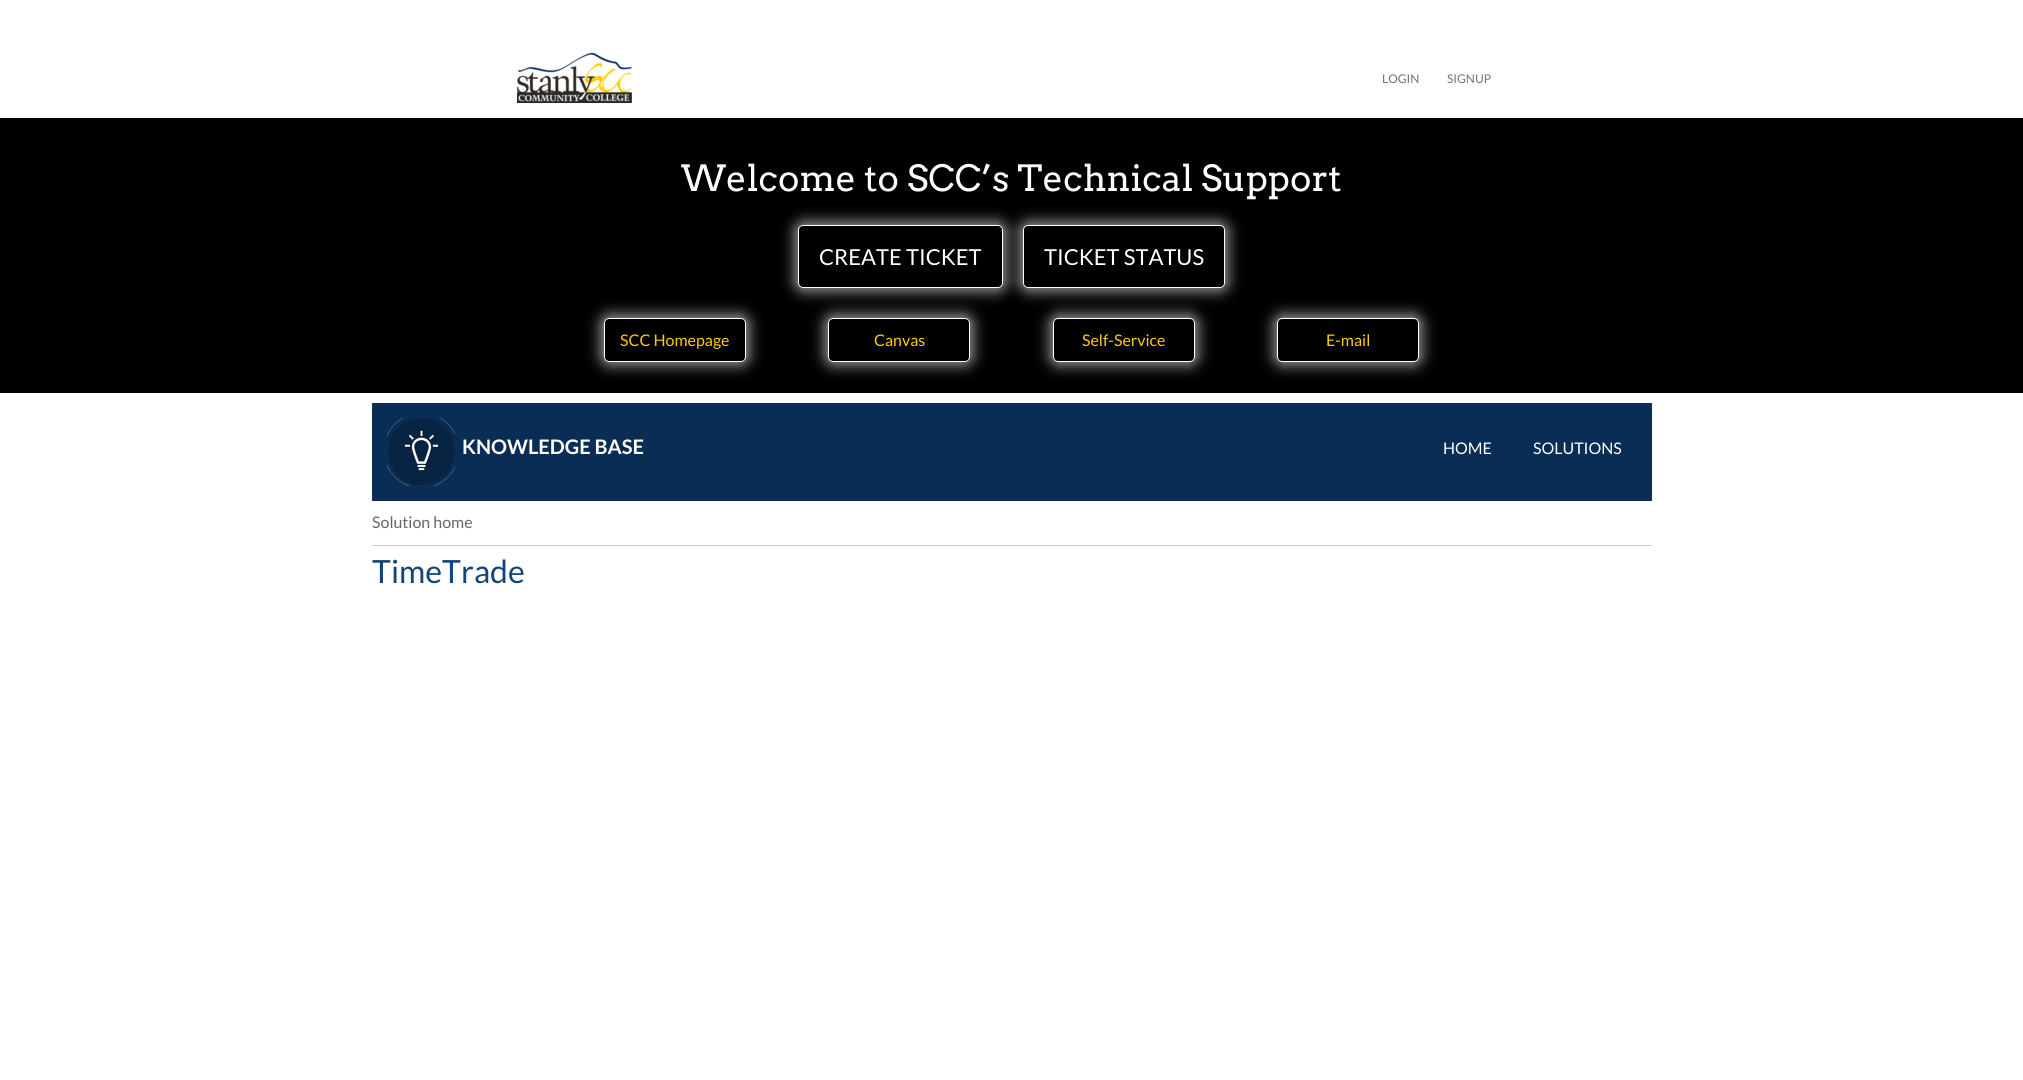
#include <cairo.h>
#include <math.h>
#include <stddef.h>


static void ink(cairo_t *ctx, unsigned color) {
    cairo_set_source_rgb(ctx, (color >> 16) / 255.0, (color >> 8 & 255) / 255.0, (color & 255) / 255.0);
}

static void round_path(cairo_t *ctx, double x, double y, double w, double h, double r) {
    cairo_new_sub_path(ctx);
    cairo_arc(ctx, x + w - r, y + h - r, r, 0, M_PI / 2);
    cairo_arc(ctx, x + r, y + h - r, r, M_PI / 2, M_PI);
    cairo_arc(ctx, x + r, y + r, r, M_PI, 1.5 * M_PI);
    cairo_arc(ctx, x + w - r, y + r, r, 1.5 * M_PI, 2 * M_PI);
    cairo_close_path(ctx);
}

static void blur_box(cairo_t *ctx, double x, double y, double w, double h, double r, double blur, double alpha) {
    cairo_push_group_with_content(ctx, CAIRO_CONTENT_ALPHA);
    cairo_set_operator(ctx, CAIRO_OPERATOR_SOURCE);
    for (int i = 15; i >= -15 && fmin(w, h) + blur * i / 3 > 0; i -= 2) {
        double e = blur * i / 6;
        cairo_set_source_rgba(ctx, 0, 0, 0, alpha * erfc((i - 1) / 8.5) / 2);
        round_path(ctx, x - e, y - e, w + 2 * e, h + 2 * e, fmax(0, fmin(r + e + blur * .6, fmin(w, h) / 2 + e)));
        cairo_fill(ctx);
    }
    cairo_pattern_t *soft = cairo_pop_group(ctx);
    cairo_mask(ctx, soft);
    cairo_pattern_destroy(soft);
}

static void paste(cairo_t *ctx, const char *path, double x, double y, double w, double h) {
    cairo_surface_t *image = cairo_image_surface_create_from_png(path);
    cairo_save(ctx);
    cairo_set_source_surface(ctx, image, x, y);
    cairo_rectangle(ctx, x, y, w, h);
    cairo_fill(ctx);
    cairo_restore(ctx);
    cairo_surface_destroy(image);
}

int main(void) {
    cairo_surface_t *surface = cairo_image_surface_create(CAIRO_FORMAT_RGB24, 2023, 1080);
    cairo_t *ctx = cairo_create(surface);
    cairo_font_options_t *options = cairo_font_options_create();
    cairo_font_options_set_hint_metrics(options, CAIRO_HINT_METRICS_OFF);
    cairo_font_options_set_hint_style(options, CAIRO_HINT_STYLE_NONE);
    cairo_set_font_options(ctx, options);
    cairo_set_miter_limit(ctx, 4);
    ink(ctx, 0xFFFFFF);
    cairo_paint(ctx);
    paste(ctx, "media/1.png", 517, 53, 115, 50);
    cairo_select_font_face(ctx, "Lato", CAIRO_FONT_SLANT_NORMAL, CAIRO_FONT_WEIGHT_NORMAL);
    cairo_set_font_size(ctx, 12);
    ink(ctx, 0x737373);
    cairo_move_to(ctx, 1382, 83);
    cairo_show_text(ctx, "LOGIN");
    cairo_move_to(ctx, 1447, 83);
    cairo_show_text(ctx, "SIGNUP");
    ink(ctx, 0x000000);
    cairo_rectangle(ctx, 0, 118, 2023, 275);
    cairo_fill(ctx);
    cairo_select_font_face(ctx, "Arvo", CAIRO_FONT_SLANT_NORMAL, CAIRO_FONT_WEIGHT_NORMAL);
    cairo_set_font_size(ctx, 36);
    ink(ctx, 0xFFFFFF);
    cairo_move_to(ctx, 681, 191);
    cairo_show_text(ctx, "Welcome to SCC’s Technical Support");
    cairo_save(ctx);
    cairo_set_fill_rule(ctx, CAIRO_FILL_RULE_EVEN_ODD);
    cairo_new_path(ctx);
    cairo_move_to(ctx, 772, 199);
    cairo_line_to(ctx, 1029, 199);
    cairo_line_to(ctx, 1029, 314);
    cairo_line_to(ctx, 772, 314);
    cairo_close_path(ctx);
    cairo_move_to(ctx, 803, 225);
    cairo_line_to(ctx, 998, 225);
    cairo_curve_to(ctx, 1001, 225, 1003, 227, 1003, 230);
    cairo_line_to(ctx, 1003, 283);
    cairo_curve_to(ctx, 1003, 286, 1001, 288, 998, 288);
    cairo_line_to(ctx, 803, 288);
    cairo_curve_to(ctx, 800, 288, 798, 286, 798, 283);
    cairo_line_to(ctx, 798, 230);
    cairo_curve_to(ctx, 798, 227, 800, 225, 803, 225);
    cairo_close_path(ctx);
    cairo_clip(ctx);
    ink(ctx, 0xFFFFFF);
    blur_box(ctx, 796, 223, 209, 67, 7, 7.5, 0.7);
    cairo_restore(ctx);
    round_path(ctx, 798.5, 225.5, 204, 62, 4.5);
    cairo_set_line_width(ctx, 1);
    cairo_stroke(ctx);
    cairo_select_font_face(ctx, "Lato", CAIRO_FONT_SLANT_NORMAL, CAIRO_FONT_WEIGHT_NORMAL);
    cairo_set_font_size(ctx, 22);
    cairo_move_to(ctx, 819, 265);
    cairo_show_text(ctx, "CREATE TICKET");
    cairo_save(ctx);
    cairo_set_fill_rule(ctx, CAIRO_FILL_RULE_EVEN_ODD);
    cairo_new_path(ctx);
    cairo_move_to(ctx, 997, 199);
    cairo_line_to(ctx, 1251, 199);
    cairo_line_to(ctx, 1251, 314);
    cairo_line_to(ctx, 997, 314);
    cairo_close_path(ctx);
    cairo_move_to(ctx, 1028, 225);
    cairo_line_to(ctx, 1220, 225);
    cairo_curve_to(ctx, 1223, 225, 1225, 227, 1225, 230);
    cairo_line_to(ctx, 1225, 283);
    cairo_curve_to(ctx, 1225, 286, 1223, 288, 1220, 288);
    cairo_line_to(ctx, 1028, 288);
    cairo_curve_to(ctx, 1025, 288, 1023, 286, 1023, 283);
    cairo_line_to(ctx, 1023, 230);
    cairo_curve_to(ctx, 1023, 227, 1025, 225, 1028, 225);
    cairo_close_path(ctx);
    cairo_clip(ctx);
    ink(ctx, 0xFFFFFF);
    blur_box(ctx, 1021, 223, 206, 67, 7, 7.5, 0.7);
    cairo_restore(ctx);
    round_path(ctx, 1023.5, 225.5, 201, 62, 4.5);
    cairo_stroke(ctx);
    cairo_move_to(ctx, 1044, 265);
    cairo_show_text(ctx, "TICKET STATUS");
    cairo_save(ctx);
    cairo_set_fill_rule(ctx, CAIRO_FILL_RULE_EVEN_ODD);
    cairo_new_path(ctx);
    cairo_move_to(ctx, 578, 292);
    cairo_line_to(ctx, 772, 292);
    cairo_line_to(ctx, 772, 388);
    cairo_line_to(ctx, 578, 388);
    cairo_close_path(ctx);
    cairo_move_to(ctx, 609, 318);
    cairo_line_to(ctx, 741, 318);
    cairo_curve_to(ctx, 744, 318, 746, 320, 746, 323);
    cairo_line_to(ctx, 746, 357);
    cairo_curve_to(ctx, 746, 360, 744, 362, 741, 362);
    cairo_line_to(ctx, 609, 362);
    cairo_curve_to(ctx, 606, 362, 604, 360, 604, 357);
    cairo_line_to(ctx, 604, 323);
    cairo_curve_to(ctx, 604, 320, 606, 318, 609, 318);
    cairo_close_path(ctx);
    cairo_clip(ctx);
    ink(ctx, 0xFFFFFF);
    blur_box(ctx, 602, 316, 146, 48, 7, 7.5, 0.7);
    cairo_restore(ctx);
    round_path(ctx, 604.5, 318.5, 141, 43, 4.5);
    cairo_stroke(ctx);
    cairo_set_font_size(ctx, 16);
    ink(ctx, 0xFFCC00);
    cairo_move_to(ctx, 620, 346);
    cairo_show_text(ctx, "SCC Homepage");
    cairo_save(ctx);
    cairo_set_fill_rule(ctx, CAIRO_FILL_RULE_EVEN_ODD);
    cairo_new_path(ctx);
    cairo_move_to(ctx, 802, 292);
    cairo_line_to(ctx, 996, 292);
    cairo_line_to(ctx, 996, 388);
    cairo_line_to(ctx, 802, 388);
    cairo_close_path(ctx);
    cairo_move_to(ctx, 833, 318);
    cairo_line_to(ctx, 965, 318);
    cairo_curve_to(ctx, 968, 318, 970, 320, 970, 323);
    cairo_line_to(ctx, 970, 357);
    cairo_curve_to(ctx, 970, 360, 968, 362, 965, 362);
    cairo_line_to(ctx, 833, 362);
    cairo_curve_to(ctx, 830, 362, 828, 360, 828, 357);
    cairo_line_to(ctx, 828, 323);
    cairo_curve_to(ctx, 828, 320, 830, 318, 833, 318);
    cairo_close_path(ctx);
    cairo_clip(ctx);
    ink(ctx, 0xFFFFFF);
    blur_box(ctx, 826, 316, 146, 48, 7, 7.5, 0.7);
    cairo_restore(ctx);
    round_path(ctx, 828.5, 318.5, 141, 43, 4.5);
    ink(ctx, 0xFFFFFF);
    cairo_stroke(ctx);
    ink(ctx, 0xFFCC00);
    cairo_move_to(ctx, 874, 346);
    cairo_show_text(ctx, "Canvas");
    cairo_save(ctx);
    cairo_set_fill_rule(ctx, CAIRO_FILL_RULE_EVEN_ODD);
    cairo_new_path(ctx);
    cairo_move_to(ctx, 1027, 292);
    cairo_line_to(ctx, 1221, 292);
    cairo_line_to(ctx, 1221, 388);
    cairo_line_to(ctx, 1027, 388);
    cairo_close_path(ctx);
    cairo_move_to(ctx, 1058, 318);
    cairo_line_to(ctx, 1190, 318);
    cairo_curve_to(ctx, 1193, 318, 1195, 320, 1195, 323);
    cairo_line_to(ctx, 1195, 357);
    cairo_curve_to(ctx, 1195, 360, 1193, 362, 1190, 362);
    cairo_line_to(ctx, 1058, 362);
    cairo_curve_to(ctx, 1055, 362, 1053, 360, 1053, 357);
    cairo_line_to(ctx, 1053, 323);
    cairo_curve_to(ctx, 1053, 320, 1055, 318, 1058, 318);
    cairo_close_path(ctx);
    cairo_clip(ctx);
    ink(ctx, 0xFFFFFF);
    blur_box(ctx, 1051, 316, 146, 48, 7, 7.5, 0.7);
    cairo_restore(ctx);
    round_path(ctx, 1053.5, 318.5, 141, 43, 4.5);
    ink(ctx, 0xFFFFFF);
    cairo_stroke(ctx);
    ink(ctx, 0xFFCC00);
    cairo_move_to(ctx, 1082, 346);
    cairo_show_text(ctx, "Self-Service");
    cairo_save(ctx);
    cairo_set_fill_rule(ctx, CAIRO_FILL_RULE_EVEN_ODD);
    cairo_new_path(ctx);
    cairo_move_to(ctx, 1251, 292);
    cairo_line_to(ctx, 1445, 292);
    cairo_line_to(ctx, 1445, 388);
    cairo_line_to(ctx, 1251, 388);
    cairo_close_path(ctx);
    cairo_move_to(ctx, 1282, 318);
    cairo_line_to(ctx, 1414, 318);
    cairo_curve_to(ctx, 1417, 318, 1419, 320, 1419, 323);
    cairo_line_to(ctx, 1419, 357);
    cairo_curve_to(ctx, 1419, 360, 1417, 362, 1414, 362);
    cairo_line_to(ctx, 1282, 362);
    cairo_curve_to(ctx, 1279, 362, 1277, 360, 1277, 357);
    cairo_line_to(ctx, 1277, 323);
    cairo_curve_to(ctx, 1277, 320, 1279, 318, 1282, 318);
    cairo_close_path(ctx);
    cairo_clip(ctx);
    ink(ctx, 0xFFFFFF);
    blur_box(ctx, 1275, 316, 146, 48, 7, 7.5, 0.7);
    cairo_restore(ctx);
    round_path(ctx, 1277.5, 318.5, 141, 43, 4.5);
    ink(ctx, 0xFFFFFF);
    cairo_stroke(ctx);
    ink(ctx, 0xFFCC00);
    cairo_move_to(ctx, 1326, 346);
    cairo_show_text(ctx, "E-mail");
    ink(ctx, 0x092D54);
    cairo_rectangle(ctx, 372, 403, 1280, 98);
    cairo_fill(ctx);
    paste(ctx, "media/2.png", 387, 418, 68, 68);
    cairo_select_font_face(ctx, "Lato", CAIRO_FONT_SLANT_NORMAL, CAIRO_FONT_WEIGHT_BOLD);
    cairo_set_font_size(ctx, 20);
    ink(ctx, 0xFFFFFF);
    cairo_move_to(ctx, 462, 454);
    cairo_show_text(ctx, "KNOWLEDGE BASE");
    cairo_select_font_face(ctx, "Lato", CAIRO_FONT_SLANT_NORMAL, CAIRO_FONT_WEIGHT_NORMAL);
    cairo_set_font_size(ctx, 16);
    cairo_move_to(ctx, 1443, 454);
    cairo_show_text(ctx, "HOME");
    cairo_move_to(ctx, 1533, 454);
    cairo_show_text(ctx, "SOLUTIONS");
    ink(ctx, 0xCCCCCC);
    cairo_rectangle(ctx, 372, 545, 1280, 1);
    cairo_fill(ctx);
    ink(ctx, 0x666666);
    cairo_move_to(ctx, 372, 528);
    cairo_show_text(ctx, "Solution home");
    cairo_set_font_size(ctx, 32);
    ink(ctx, 0x124678);
    cairo_move_to(ctx, 372, 583);
    cairo_show_text(ctx, "TimeTrade");
    cairo_surface_write_to_png(surface, "image.png");
    cairo_font_options_destroy(options);
    cairo_destroy(ctx);
    cairo_surface_destroy(surface);
    return 0;
}
